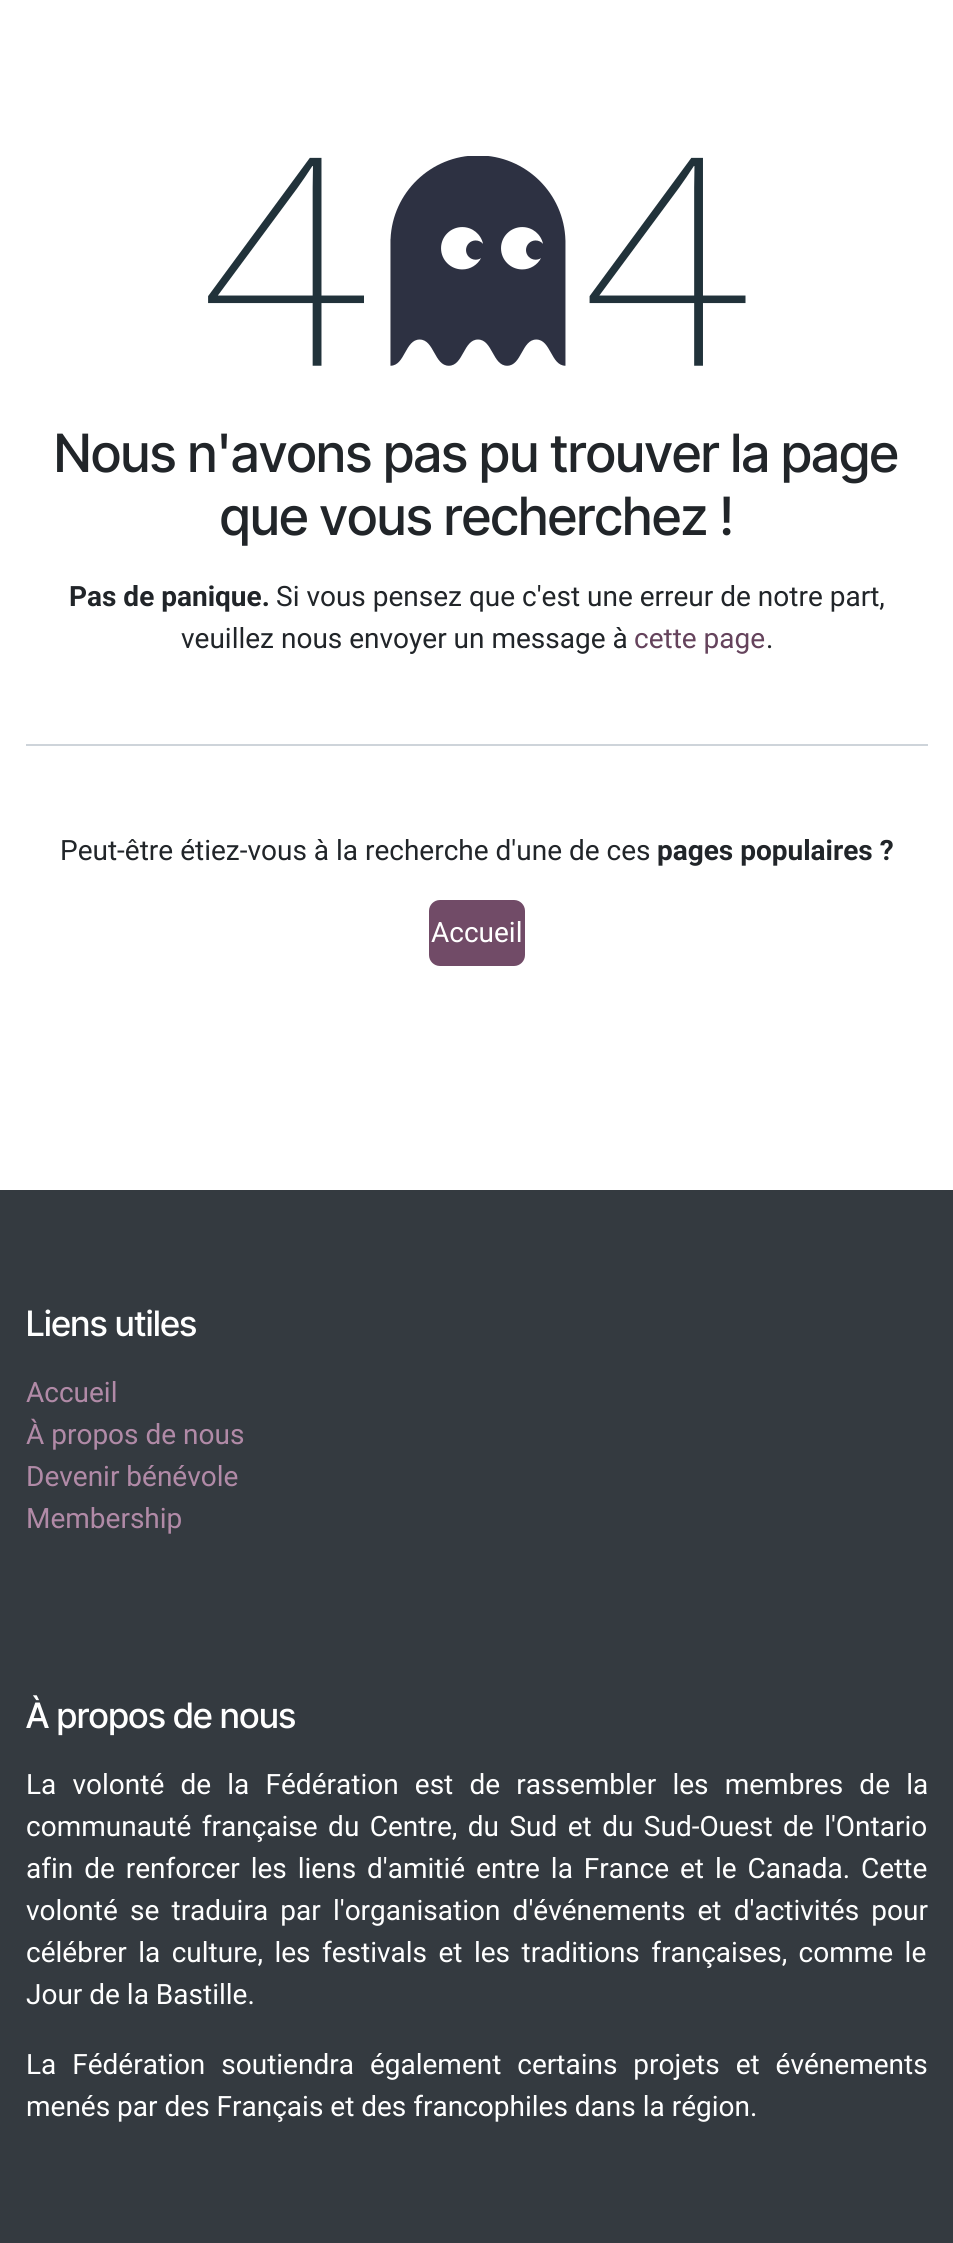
#include <cairo.h>
#include <math.h>
#include <stddef.h>

typedef struct { double x, y; const char *s; } line_t;

static void ink(cairo_t *ctx, unsigned color) {
    cairo_set_source_rgb(ctx, (color >> 16) / 255.0, (color >> 8 & 255) / 255.0, (color & 255) / 255.0);
}

static void write_spaced(cairo_t *ctx, double x, double y, const char *s, double letter, double word) {
    cairo_move_to(ctx, x, y);
    while (*s) {
        char ch[5] = {0};
        int n = 0;
        do ch[n++] = *s++; while ((*s & 0xC0) == 0x80);
        cairo_show_text(ctx, ch);
        cairo_rel_move_to(ctx, letter + word * (*ch == ' '), 0);
    }
}

static void round_path(cairo_t *ctx, double x, double y, double w, double h, double r) {
    cairo_new_sub_path(ctx);
    cairo_arc(ctx, x + w - r, y + h - r, r, 0, M_PI / 2);
    cairo_arc(ctx, x + r, y + h - r, r, M_PI / 2, M_PI);
    cairo_arc(ctx, x + r, y + r, r, M_PI, 1.5 * M_PI);
    cairo_arc(ctx, x + w - r, y + r, r, 1.5 * M_PI, 2 * M_PI);
    cairo_close_path(ctx);
}

static void paste(cairo_t *ctx, const char *path, double x, double y, double w, double h) {
    cairo_surface_t *image = cairo_image_surface_create_from_png(path);
    cairo_save(ctx);
    cairo_set_source_surface(ctx, image, x, y);
    cairo_rectangle(ctx, x, y, w, h);
    cairo_fill(ctx);
    cairo_restore(ctx);
    cairo_surface_destroy(image);
}

int main(void) {
    cairo_surface_t *surface = cairo_image_surface_create(CAIRO_FORMAT_RGB24, 953, 2243);
    cairo_t *ctx = cairo_create(surface);
    cairo_font_options_t *options = cairo_font_options_create();
    cairo_font_options_set_hint_metrics(options, CAIRO_HINT_METRICS_OFF);
    cairo_font_options_set_hint_style(options, CAIRO_HINT_STYLE_NONE);
    cairo_set_font_options(ctx, options);
    cairo_set_miter_limit(ctx, 4);
    ink(ctx, 0xFFFFFF);
    cairo_paint(ctx);
    paste(ctx, "media/1.png", 208, 156, 538, 210);
    cairo_select_font_face(ctx, "Inter Tight Medium", CAIRO_FONT_SLANT_NORMAL, CAIRO_FONT_WEIGHT_NORMAL);
    cairo_set_font_size(ctx, 52.75);
    ink(ctx, 0x212529);
    cairo_move_to(ctx, 54, 472);
    cairo_show_text(ctx, "Nous n'avons pas pu trouver la page");
    cairo_move_to(ctx, 220, 535);
    cairo_show_text(ctx, "que vous recherchez !");
    cairo_select_font_face(ctx, "Roboto", CAIRO_FONT_SLANT_NORMAL, CAIRO_FONT_WEIGHT_BOLD);
    cairo_set_font_size(ctx, 28);
    cairo_move_to(ctx, 69, 606);
    cairo_show_text(ctx, "Pas de panique.");
    cairo_select_font_face(ctx, "Roboto", CAIRO_FONT_SLANT_NORMAL, CAIRO_FONT_WEIGHT_NORMAL);
    cairo_move_to(ctx, 276, 606);
    cairo_show_text(ctx, "Si vous pensez que c'est une erreur de notre part,");
    cairo_move_to(ctx, 181, 648);
    cairo_show_text(ctx, "veuillez nous envoyer un message à");
    ink(ctx, 0x65435C);
    cairo_move_to(ctx, 634, 648);
    cairo_show_text(ctx, "cette page");
    ink(ctx, 0x212529);
    cairo_move_to(ctx, 766, 648);
    cairo_show_text(ctx, ".");
    ink(ctx, 0xCED4DA);
    cairo_rectangle(ctx, 26, 744, 902, 2);
    cairo_fill(ctx);
    ink(ctx, 0x212529);
    cairo_move_to(ctx, 60, 860);
    cairo_show_text(ctx, "Peut-être étiez-vous à la recherche d'une de ces");
    cairo_select_font_face(ctx, "Roboto", CAIRO_FONT_SLANT_NORMAL, CAIRO_FONT_WEIGHT_BOLD);
    cairo_move_to(ctx, 657, 860);
    cairo_show_text(ctx, "pages populaires ?");
    ink(ctx, 0x714B67);
    round_path(ctx, 430, 901, 94, 64, 10);
    cairo_fill_preserve(ctx);
    cairo_stroke(ctx);
    cairo_select_font_face(ctx, "Roboto", CAIRO_FONT_SLANT_NORMAL, CAIRO_FONT_WEIGHT_NORMAL);
    ink(ctx, 0xFFFFFF);
    cairo_move_to(ctx, 431, 942);
    cairo_show_text(ctx, "Accueil");
    ink(ctx, 0x343A40);
    cairo_rectangle(ctx, 0, 1190, 953, 1053);
    cairo_fill(ctx);
    cairo_select_font_face(ctx, "Inter Tight Medium", CAIRO_FONT_SLANT_NORMAL, CAIRO_FONT_WEIGHT_NORMAL);
    cairo_set_font_size(ctx, 35);
    ink(ctx, 0xFFFFFF);
    cairo_move_to(ctx, 26, 1336);
    cairo_show_text(ctx, "Liens utiles");
    cairo_select_font_face(ctx, "Roboto", CAIRO_FONT_SLANT_NORMAL, CAIRO_FONT_WEIGHT_NORMAL);
    cairo_set_font_size(ctx, 28);
    ink(ctx, 0xB18AA7);
    {
        static const line_t items[] = {
            {26, 1402, "Accueil"},
            {26, 1444, "À propos de nous"},
            {26, 1486, "Devenir bénévole"},
            {26, 1528, "Membership"},
        };
        for (size_t i = 0; i < sizeof items / sizeof *items; i++) {
            cairo_move_to(ctx, items[i].x, items[i].y);
            cairo_show_text(ctx, items[i].s);
        }
    }
    cairo_select_font_face(ctx, "Inter Tight Medium", CAIRO_FONT_SLANT_NORMAL, CAIRO_FONT_WEIGHT_NORMAL);
    cairo_set_font_size(ctx, 35);
    ink(ctx, 0xFFFFFF);
    cairo_move_to(ctx, 26, 1728);
    cairo_show_text(ctx, "À propos de nous");
    cairo_select_font_face(ctx, "Roboto", CAIRO_FONT_SLANT_NORMAL, CAIRO_FONT_WEIGHT_NORMAL);
    cairo_set_font_size(ctx, 28);
    write_spaced(ctx, 26, 1794, "La volonté de la Fédération est de rassembler les membres de la", 0, 9.25);
    write_spaced(ctx, 26, 1836, "communauté française du Centre, du Sud et du Sud-Ouest de l'Ontario", 0, 3.5);
    write_spaced(ctx, 26, 1878, "afin de renforcer les liens d'amitié entre la France et le Canada. Cette", 0, 4);
    write_spaced(ctx, 26, 1920, "volonté se traduira par l'organisation d'événements et d'activités pour", 0, 5.25);
    write_spaced(ctx, 26, 1962, "célébrer la culture, les festivals et les traditions françaises, comme le", 0, 4.5);
    cairo_move_to(ctx, 26, 2004);
    cairo_show_text(ctx, "Jour de la Bastille.");
    write_spaced(ctx, 26, 2074, "La Fédération soutiendra également certains projets et événements", 0, 9);
    cairo_move_to(ctx, 26, 2116);
    cairo_show_text(ctx, "menés par des Français et des francophiles dans la région.");
    cairo_surface_write_to_png(surface, "image.png");
    cairo_font_options_destroy(options);
    cairo_destroy(ctx);
    cairo_surface_destroy(surface);
    return 0;
}
